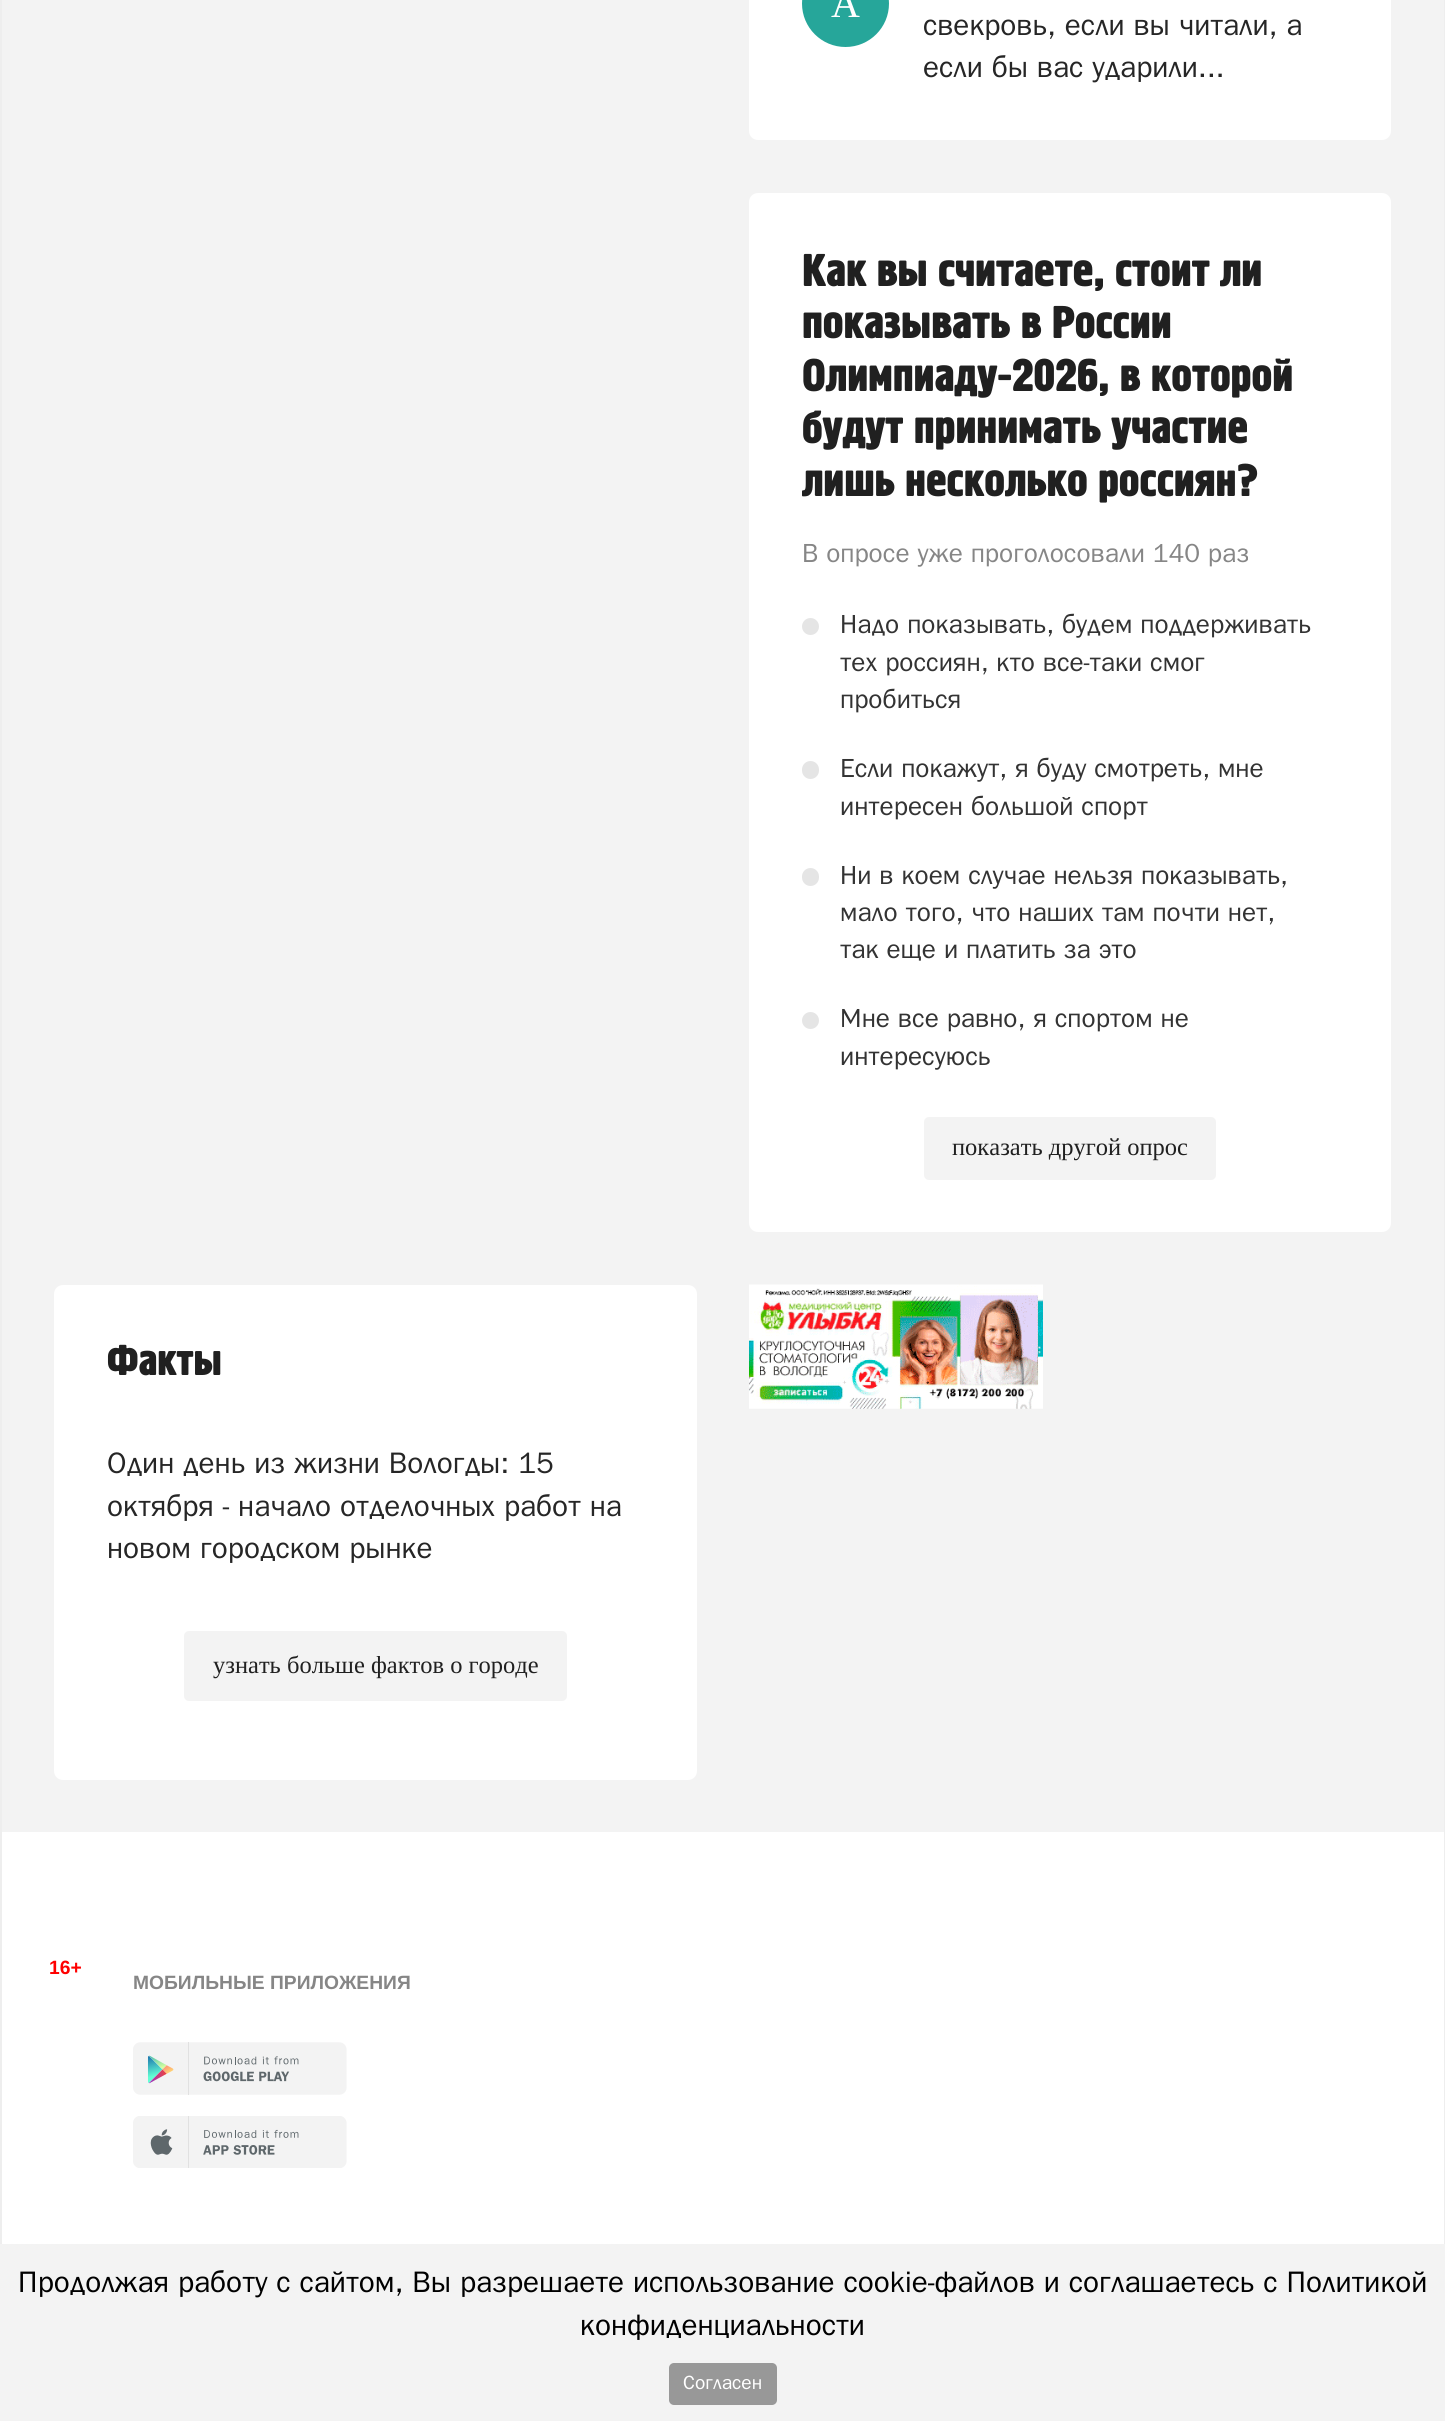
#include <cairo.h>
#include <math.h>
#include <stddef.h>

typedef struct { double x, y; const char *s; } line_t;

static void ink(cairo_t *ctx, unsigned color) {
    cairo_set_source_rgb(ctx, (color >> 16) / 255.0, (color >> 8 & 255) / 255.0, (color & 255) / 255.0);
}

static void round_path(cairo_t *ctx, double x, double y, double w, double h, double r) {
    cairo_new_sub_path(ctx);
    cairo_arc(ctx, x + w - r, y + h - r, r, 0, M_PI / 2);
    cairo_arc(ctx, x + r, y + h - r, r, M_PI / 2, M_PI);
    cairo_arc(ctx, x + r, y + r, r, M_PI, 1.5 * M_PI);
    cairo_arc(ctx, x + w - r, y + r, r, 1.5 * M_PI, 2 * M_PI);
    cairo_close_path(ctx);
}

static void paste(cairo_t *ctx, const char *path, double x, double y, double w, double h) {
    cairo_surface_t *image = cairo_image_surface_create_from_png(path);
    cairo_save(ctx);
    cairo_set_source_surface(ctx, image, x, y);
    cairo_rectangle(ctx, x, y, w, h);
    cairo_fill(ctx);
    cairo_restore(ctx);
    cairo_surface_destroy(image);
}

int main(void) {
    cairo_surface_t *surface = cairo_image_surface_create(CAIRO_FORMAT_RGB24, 1445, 2421);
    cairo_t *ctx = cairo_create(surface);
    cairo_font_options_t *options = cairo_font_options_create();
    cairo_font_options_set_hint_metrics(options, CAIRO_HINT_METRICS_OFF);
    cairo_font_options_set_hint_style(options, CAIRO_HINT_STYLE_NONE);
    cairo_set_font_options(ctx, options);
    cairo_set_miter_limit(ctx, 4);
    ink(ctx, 0xF3F3F3);
    cairo_paint(ctx);
    ink(ctx, 0xEEEEEE);
    cairo_rectangle(ctx, 1444, 0, 1, 2244);
    cairo_fill(ctx);
    cairo_rectangle(ctx, 0, 0, 2, 2244);
    cairo_fill(ctx);
    ink(ctx, 0xFFFFFF);
    round_path(ctx, 749, -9, 642, 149, 9);
    cairo_fill(ctx);
    ink(ctx, 0x26A69A);
    cairo_arc(ctx, 845.5, 3.5, 43.5, 0, 2 * M_PI);
    cairo_fill(ctx);
    cairo_select_font_face(ctx, "Liberation Serif", CAIRO_FONT_SLANT_NORMAL, CAIRO_FONT_WEIGHT_NORMAL);
    cairo_set_font_size(ctx, 40);
    ink(ctx, 0xFFFFFF);
    cairo_move_to(ctx, 831, 17);
    cairo_show_text(ctx, "А");
    cairo_select_font_face(ctx, "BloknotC", CAIRO_FONT_SLANT_NORMAL, CAIRO_FONT_WEIGHT_NORMAL);
    cairo_set_font_size(ctx, 29.75);
    ink(ctx, 0x262626);
    cairo_move_to(ctx, 923, 35);
    cairo_show_text(ctx, "свекровь, если вы читали, а");
    cairo_move_to(ctx, 923, 77);
    cairo_show_text(ctx, "если бы вас ударили...");
    ink(ctx, 0xFFFFFF);
    round_path(ctx, 749, 193, 642, 1039, 9);
    cairo_fill(ctx);
    cairo_select_font_face(ctx, "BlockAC", CAIRO_FONT_SLANT_NORMAL, CAIRO_FONT_WEIGHT_NORMAL);
    cairo_set_font_size(ctx, 44.6);
    ink(ctx, 0x202020);
    {
        static const line_t items[] = {
            {802, 286, "Как вы считаете, стоит ли"},
            {802, 338, "показывать в России"},
            {802, 391, "Олимпиаду-2026, в которой"},
            {802, 443, "будут принимать участие"},
            {802, 496, "лишь несколько россиян?"},
        };
        for (size_t i = 0; i < sizeof items / sizeof *items; i++) {
            cairo_move_to(ctx, items[i].x, items[i].y);
            cairo_show_text(ctx, items[i].s);
        }
    }
    cairo_select_font_face(ctx, "BloknotC", CAIRO_FONT_SLANT_NORMAL, CAIRO_FONT_WEIGHT_NORMAL);
    cairo_set_font_size(ctx, 26.25);
    ink(ctx, 0x868686);
    cairo_move_to(ctx, 802, 562);
    cairo_show_text(ctx, "В опросе уже проголосовали 140 раз");
    ink(ctx, 0xE5E5E5);
    cairo_new_path(ctx);
    cairo_arc(ctx, 810.5, 626.5, 8.5, 0, 2 * M_PI);
    cairo_fill(ctx);
    ink(ctx, 0x333333);
    {
        static const line_t items[] = {
            {840, 633, "Надо показывать, будем поддерживать"},
            {840, 671, "тех россиян, кто все-таки смог"},
            {840, 708, "пробиться"},
        };
        for (size_t i = 0; i < sizeof items / sizeof *items; i++) {
            cairo_move_to(ctx, items[i].x, items[i].y);
            cairo_show_text(ctx, items[i].s);
        }
    }
    ink(ctx, 0xE5E5E5);
    round_path(ctx, 802, 761, 17, 18, 8.5);
    cairo_fill(ctx);
    ink(ctx, 0x333333);
    cairo_move_to(ctx, 840, 777);
    cairo_show_text(ctx, "Если покажут, я буду смотреть, мне");
    cairo_move_to(ctx, 840, 815);
    cairo_show_text(ctx, "интересен большой спорт");
    ink(ctx, 0xE5E5E5);
    round_path(ctx, 802, 868, 17, 18, 8.5);
    cairo_fill(ctx);
    ink(ctx, 0x333333);
    {
        static const line_t items[] = {
            {840, 884, "Ни в коем случае нельзя показывать,"},
            {840, 921, "мало того, что наших там почти нет,"},
            {840, 958, "так еще и платить за это"},
        };
        for (size_t i = 0; i < sizeof items / sizeof *items; i++) {
            cairo_move_to(ctx, items[i].x, items[i].y);
            cairo_show_text(ctx, items[i].s);
        }
    }
    ink(ctx, 0xE5E5E5);
    cairo_new_path(ctx);
    cairo_arc(ctx, 810.5, 1020.5, 8.5, 0, 2 * M_PI);
    cairo_fill(ctx);
    ink(ctx, 0x333333);
    cairo_move_to(ctx, 840, 1027);
    cairo_show_text(ctx, "Мне все равно, я спортом не");
    cairo_move_to(ctx, 840, 1065);
    cairo_show_text(ctx, "интересуюсь");
    ink(ctx, 0xF3F3F3);
    round_path(ctx, 924, 1117, 292, 63, 5);
    cairo_fill(ctx);
    cairo_select_font_face(ctx, "Liberation Serif", CAIRO_FONT_SLANT_NORMAL, CAIRO_FONT_WEIGHT_NORMAL);
    cairo_set_font_size(ctx, 24.5);
    ink(ctx, 0x202020);
    cairo_move_to(ctx, 952, 1155);
    cairo_show_text(ctx, "показать другой опрос");
    ink(ctx, 0xFFFFFF);
    round_path(ctx, 54, 1285, 643, 495, 9);
    cairo_fill(ctx);
    cairo_select_font_face(ctx, "BlockAC", CAIRO_FONT_SLANT_NORMAL, CAIRO_FONT_WEIGHT_NORMAL);
    cairo_set_font_size(ctx, 42);
    ink(ctx, 0x202020);
    cairo_move_to(ctx, 107, 1375);
    cairo_show_text(ctx, "Факты");
    cairo_select_font_face(ctx, "BloknotC", CAIRO_FONT_SLANT_NORMAL, CAIRO_FONT_WEIGHT_NORMAL);
    cairo_set_font_size(ctx, 29.75);
    ink(ctx, 0x262626);
    {
        static const line_t items[] = {
            {107, 1473, "Один день из жизни Вологды: 15"},
            {107, 1516, "октября - начало отделочных работ на"},
            {107, 1558, "новом городском рынке"},
        };
        for (size_t i = 0; i < sizeof items / sizeof *items; i++) {
            cairo_move_to(ctx, items[i].x, items[i].y);
            cairo_show_text(ctx, items[i].s);
        }
    }
    ink(ctx, 0xF3F3F3);
    round_path(ctx, 184, 1631, 383, 70, 5);
    cairo_fill(ctx);
    cairo_select_font_face(ctx, "Liberation Serif", CAIRO_FONT_SLANT_NORMAL, CAIRO_FONT_WEIGHT_NORMAL);
    cairo_set_font_size(ctx, 24.5);
    ink(ctx, 0x202020);
    cairo_move_to(ctx, 213, 1673);
    cairo_show_text(ctx, "узнать больше фактов о городе");
    paste(ctx, "media/1.png", 749, 1284, 294, 125);
    ink(ctx, 0xFFFFFF);
    cairo_rectangle(ctx, 2, 1832, 1442, 412);
    cairo_fill(ctx);
    cairo_select_font_face(ctx, "Liberation Sans", CAIRO_FONT_SLANT_NORMAL, CAIRO_FONT_WEIGHT_BOLD);
    cairo_set_font_size(ctx, 19.25);
    ink(ctx, 0xFF0000);
    cairo_move_to(ctx, 49, 1974);
    cairo_show_text(ctx, "16+");
    ink(ctx, 0x868686);
    cairo_move_to(ctx, 133, 1989);
    cairo_show_text(ctx, "МОБИЛЬНЫЕ ПРИЛОЖЕНИЯ");
    paste(ctx, "media/2.png", 133, 2042, 214, 53);
    paste(ctx, "media/3.png", 133, 2116, 214, 52);
    cairo_select_font_face(ctx, "BloknotC", CAIRO_FONT_SLANT_NORMAL, CAIRO_FONT_WEIGHT_NORMAL);
    cairo_set_font_size(ctx, 29.75);
    ink(ctx, 0x000000);
    cairo_move_to(ctx, 18, 2292);
    cairo_show_text(ctx, "Продолжая работу с сайтом, Вы разрешаете использование cookie-файлов и соглашаетесь с Политикой");
    cairo_move_to(ctx, 580, 2335);
    cairo_show_text(ctx, "конфиденциальности");
    ink(ctx, 0x989898);
    round_path(ctx, 669, 2363, 108, 42, 5);
    cairo_fill(ctx);
    cairo_set_font_size(ctx, 19.25);
    ink(ctx, 0xFFFFFF);
    cairo_move_to(ctx, 683, 2389);
    cairo_show_text(ctx, "Согласен");
    cairo_surface_write_to_png(surface, "image.png");
    cairo_font_options_destroy(options);
    cairo_destroy(ctx);
    cairo_surface_destroy(surface);
    return 0;
}
